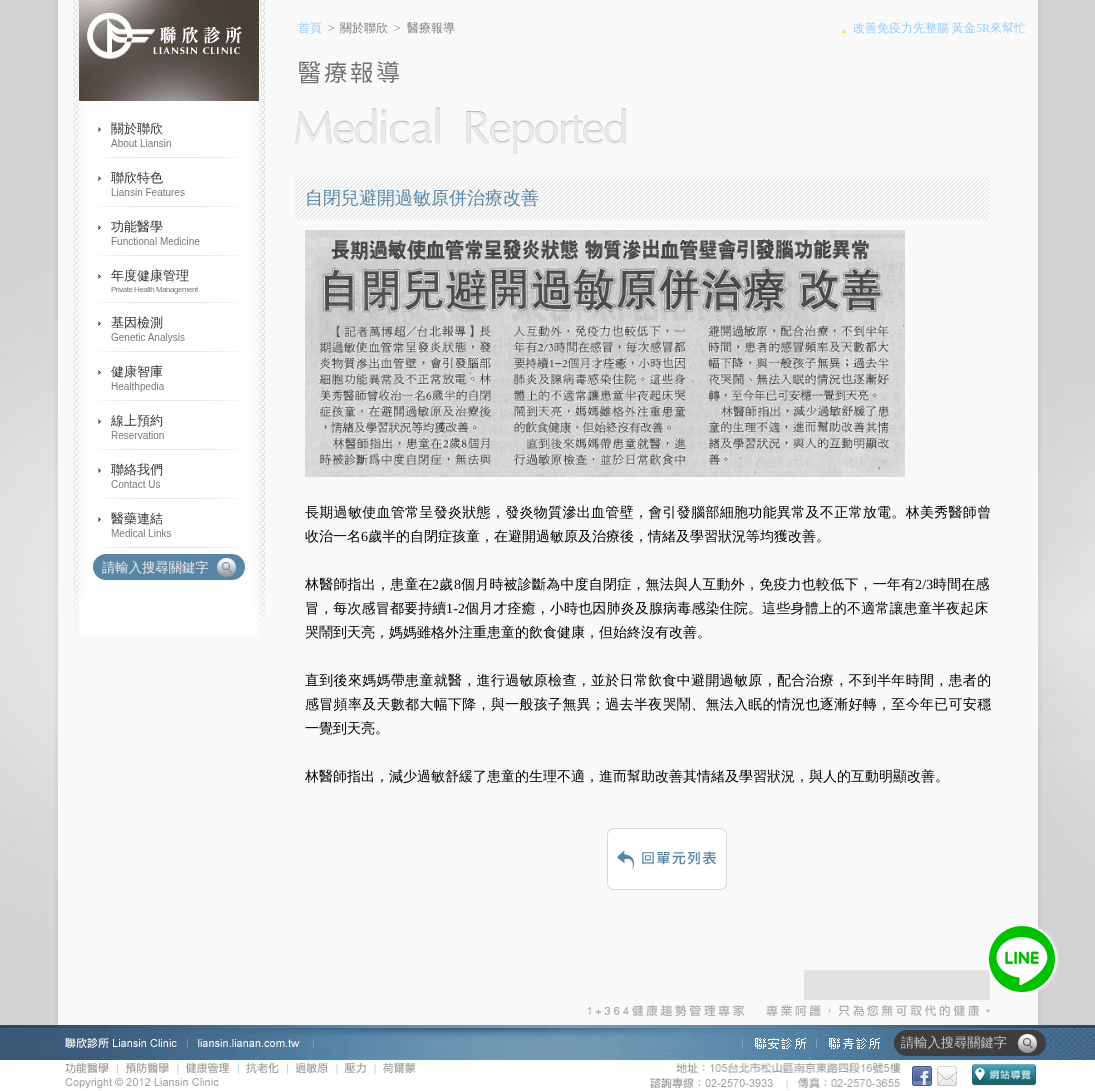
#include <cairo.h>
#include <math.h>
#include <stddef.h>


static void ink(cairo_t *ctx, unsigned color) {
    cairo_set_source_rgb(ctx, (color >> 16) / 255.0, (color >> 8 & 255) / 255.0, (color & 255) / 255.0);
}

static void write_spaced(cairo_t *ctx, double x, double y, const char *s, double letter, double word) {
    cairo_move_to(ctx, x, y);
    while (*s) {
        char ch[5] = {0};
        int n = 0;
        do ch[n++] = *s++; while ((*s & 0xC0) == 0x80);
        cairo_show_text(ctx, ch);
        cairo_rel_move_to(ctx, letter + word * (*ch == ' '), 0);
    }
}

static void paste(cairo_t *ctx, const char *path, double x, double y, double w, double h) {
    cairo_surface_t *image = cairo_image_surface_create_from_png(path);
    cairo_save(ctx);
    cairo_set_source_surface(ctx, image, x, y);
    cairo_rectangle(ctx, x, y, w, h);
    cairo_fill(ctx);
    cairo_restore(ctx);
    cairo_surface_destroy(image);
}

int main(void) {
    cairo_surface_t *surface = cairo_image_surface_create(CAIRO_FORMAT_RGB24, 1095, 1091);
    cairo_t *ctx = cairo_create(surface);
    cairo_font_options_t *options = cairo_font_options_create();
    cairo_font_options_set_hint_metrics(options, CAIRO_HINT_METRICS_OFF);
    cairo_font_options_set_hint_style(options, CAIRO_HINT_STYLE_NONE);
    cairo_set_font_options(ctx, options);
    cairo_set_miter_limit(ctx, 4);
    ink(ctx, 0xFFFFFF);
    cairo_paint(ctx);
    paste(ctx, "media/1.png", 0, 0, 1095, 1025);
    paste(ctx, "media/2.png", 54, 0, 988, 1025);
    paste(ctx, "media/3.png", 73, 0, 192, 637);
    paste(ctx, "media/4.png", 79, 0, 180, 101);
    paste(ctx, "media/5.png", 93, 122, 152, 458);
    cairo_select_font_face(ctx, "WenQuanYi Zen Hei Medium", CAIRO_FONT_SLANT_NORMAL, CAIRO_FONT_WEIGHT_NORMAL);
    cairo_set_font_size(ctx, 12);
    ink(ctx, 0x8FCBFF);
    cairo_move_to(ctx, 298, 32);
    cairo_show_text(ctx, "首頁");
    cairo_select_font_face(ctx, "Liberation Serif", CAIRO_FONT_SLANT_NORMAL, CAIRO_FONT_WEIGHT_NORMAL);
    ink(ctx, 0x7A7A7A);
    cairo_move_to(ctx, 328, 32);
    cairo_show_text(ctx, ">");
    cairo_select_font_face(ctx, "WenQuanYi Zen Hei Medium", CAIRO_FONT_SLANT_NORMAL, CAIRO_FONT_WEIGHT_NORMAL);
    cairo_move_to(ctx, 340, 32);
    cairo_show_text(ctx, "關於聯欣");
    cairo_select_font_face(ctx, "Liberation Serif", CAIRO_FONT_SLANT_NORMAL, CAIRO_FONT_WEIGHT_NORMAL);
    cairo_move_to(ctx, 394, 32);
    cairo_show_text(ctx, ">");
    cairo_select_font_face(ctx, "WenQuanYi Zen Hei Medium", CAIRO_FONT_SLANT_NORMAL, CAIRO_FONT_WEIGHT_NORMAL);
    cairo_move_to(ctx, 407, 32);
    cairo_show_text(ctx, "醫療報導");
    ink(ctx, 0x8FCBFF);
    write_spaced(ctx, 853, 32, "改善免疫力先整腸 黃金", 0, -1);
    cairo_select_font_face(ctx, "Liberation Serif", CAIRO_FONT_SLANT_NORMAL, CAIRO_FONT_WEIGHT_NORMAL);
    cairo_move_to(ctx, 976, 32);
    cairo_show_text(ctx, "5R");
    cairo_select_font_face(ctx, "WenQuanYi Zen Hei Medium", CAIRO_FONT_SLANT_NORMAL, CAIRO_FONT_WEIGHT_NORMAL);
    cairo_move_to(ctx, 990, 32);
    cairo_show_text(ctx, "來幫忙");
    cairo_select_font_face(ctx, "WenQuanYi Zen Hei", CAIRO_FONT_SLANT_NORMAL, CAIRO_FONT_WEIGHT_BOLD);
    ink(ctx, 0xFFBF42);
    cairo_move_to(ctx, 841, 32);
    cairo_show_text(ctx, "。");
    paste(ctx, "media/6.png", 295, 61, 331, 93);
    paste(ctx, "media/7.png", 295, 177, 695, 43);
    cairo_select_font_face(ctx, "WenQuanYi Zen Hei Medium", CAIRO_FONT_SLANT_NORMAL, CAIRO_FONT_WEIGHT_NORMAL);
    cairo_set_font_size(ctx, 18);
    ink(ctx, 0x5985A5);
    cairo_move_to(ctx, 305, 204);
    cairo_show_text(ctx, "自閉兒避開過敏原併治療改善");
    paste(ctx, "media/8.png", 305, 230, 600, 247);
    cairo_set_font_size(ctx, 14);
    ink(ctx, 0x000000);
    write_spaced(ctx, 305, 517, "長期過敏使血管常呈發炎狀態，發炎物質滲出血管壁，會引發腦部細胞功能異常及不正常放電。林美秀醫師曾", 0.3, 0);
    cairo_move_to(ctx, 305, 541);
    cairo_show_text(ctx, "收治一名");
    cairo_select_font_face(ctx, "Liberation Serif", CAIRO_FONT_SLANT_NORMAL, CAIRO_FONT_WEIGHT_NORMAL);
    cairo_move_to(ctx, 361, 541);
    cairo_show_text(ctx, "6");
    cairo_select_font_face(ctx, "WenQuanYi Zen Hei Medium", CAIRO_FONT_SLANT_NORMAL, CAIRO_FONT_WEIGHT_NORMAL);
    cairo_move_to(ctx, 368, 541);
    cairo_show_text(ctx, "歲半的自閉症孩童，在避開過敏原及治療後，情緒及學習狀況等均獲改善。");
    write_spaced(ctx, 305, 589, "林醫師指出，患童在", 0.2, 0);
    cairo_select_font_face(ctx, "Liberation Serif", CAIRO_FONT_SLANT_NORMAL, CAIRO_FONT_WEIGHT_NORMAL);
    write_spaced(ctx, 432, 589, "2", 0.2, 0);
    cairo_select_font_face(ctx, "WenQuanYi Zen Hei Medium", CAIRO_FONT_SLANT_NORMAL, CAIRO_FONT_WEIGHT_NORMAL);
    write_spaced(ctx, 439, 589, "歲", 0.2, 0);
    cairo_select_font_face(ctx, "Liberation Serif", CAIRO_FONT_SLANT_NORMAL, CAIRO_FONT_WEIGHT_NORMAL);
    write_spaced(ctx, 454, 589, "8", 0.2, 0);
    cairo_select_font_face(ctx, "WenQuanYi Zen Hei Medium", CAIRO_FONT_SLANT_NORMAL, CAIRO_FONT_WEIGHT_NORMAL);
    write_spaced(ctx, 461, 589, "個月時被診斷為中度自閉症，無法與人互動外，免疫力也較低下，一年有", 0.2, 0);
    cairo_select_font_face(ctx, "Liberation Serif", CAIRO_FONT_SLANT_NORMAL, CAIRO_FONT_WEIGHT_NORMAL);
    write_spaced(ctx, 915, 589, "2/3", 0.2, 0);
    cairo_select_font_face(ctx, "WenQuanYi Zen Hei Medium", CAIRO_FONT_SLANT_NORMAL, CAIRO_FONT_WEIGHT_NORMAL);
    write_spaced(ctx, 933, 589, "時間在感", 0.2, 0);
    write_spaced(ctx, 305, 613, "冒，每次感冒都要持續", 0.15, 0);
    cairo_select_font_face(ctx, "Liberation Serif", CAIRO_FONT_SLANT_NORMAL, CAIRO_FONT_WEIGHT_NORMAL);
    write_spaced(ctx, 446, 613, "1-2", 0.15, 0);
    cairo_select_font_face(ctx, "WenQuanYi Zen Hei Medium", CAIRO_FONT_SLANT_NORMAL, CAIRO_FONT_WEIGHT_NORMAL);
    write_spaced(ctx, 465, 613, "個月才痊癒，小時也因肺炎及腺病毒感染住院。這些身體上的不適常讓患童半夜起床", 0.15, 0);
    cairo_move_to(ctx, 305, 637);
    cairo_show_text(ctx, "哭鬧到天亮，媽媽雖格外注重患童的飲食健康，但始終沒有改善。");
    write_spaced(ctx, 305, 685, "直到後來媽媽帶患童就醫，進行過敏原檢查，並於日常飲食中避開過敏原，配合治療，不到半年時間，患者的", 0.3, 0);
    write_spaced(ctx, 305, 709, "感冒頻率及天數都大幅下降，與一般孩子無異；過去半夜哭鬧、無法入眠的情況也逐漸好轉，至今年已可安穩", 0.3, 0);
    cairo_move_to(ctx, 305, 733);
    cairo_show_text(ctx, "一覺到天亮。");
    cairo_move_to(ctx, 305, 781);
    cairo_show_text(ctx, "林醫師指出，減少過敏舒緩了患童的生理不適，進而幫助改善其情緒及學習狀況，與人的互動明顯改善。");
    paste(ctx, "media/9.png", 607, 828, 120, 62);
    ink(ctx, 0xE2E2E2);
    cairo_rectangle(ctx, 804, 970, 186, 30);
    cairo_fill(ctx);
    paste(ctx, "media/10.png", 587, 1005, 403, 12);
    paste(ctx, "media/11.png", 987, 924, 72, 70);
    paste(ctx, "media/12.png", 0, 1025, 1095, 66);
    paste(ctx, "media/13.png", 65, 1038, 123, 11);
    paste(ctx, "media/14.png", 198, 1039, 116, 9);
    paste(ctx, "media/15.png", 742, 1038, 64, 11);
    paste(ctx, "media/16.png", 816, 1038, 64, 11);
    paste(ctx, "media/17.png", 894, 1030, 152, 26);
    cairo_save(ctx);
    cairo_rectangle(ctx, 901, 1034, 115, 18);
    cairo_clip(ctx);
    cairo_set_font_size(ctx, 13.25);
    ink(ctx, 0xCCCCCC);
    cairo_move_to(ctx, 901, 1047);
    cairo_show_text(ctx, "請輸入搜尋關鍵字");
    cairo_restore(ctx);
    paste(ctx, "media/18.png", 1018, 1034, 19, 19);
    paste(ctx, "media/19.png", 65, 1063, 53, 12);
    paste(ctx, "media/20.png", 125, 1063, 54, 12);
    paste(ctx, "media/21.png", 186, 1063, 53, 12);
    paste(ctx, "media/22.png", 246, 1063, 42, 12);
    paste(ctx, "media/23.png", 295, 1063, 43, 12);
    paste(ctx, "media/24.png", 345, 1063, 31, 12);
    paste(ctx, "media/25.png", 383, 1063, 33, 10);
    paste(ctx, "media/26.png", 65, 1078, 154, 11);
    paste(ctx, "media/27.png", 676, 1063, 225, 10);
    paste(ctx, "media/28.png", 650, 1078, 138, 12);
    paste(ctx, "media/29.png", 798, 1078, 102, 10);
    paste(ctx, "media/30.png", 912, 1066, 20, 20);
    paste(ctx, "media/31.png", 937, 1066, 20, 20);
    paste(ctx, "media/32.png", 972, 1064, 64, 22);
    cairo_surface_write_to_png(surface, "image.png");
    cairo_font_options_destroy(options);
    cairo_destroy(ctx);
    cairo_surface_destroy(surface);
    return 0;
}
